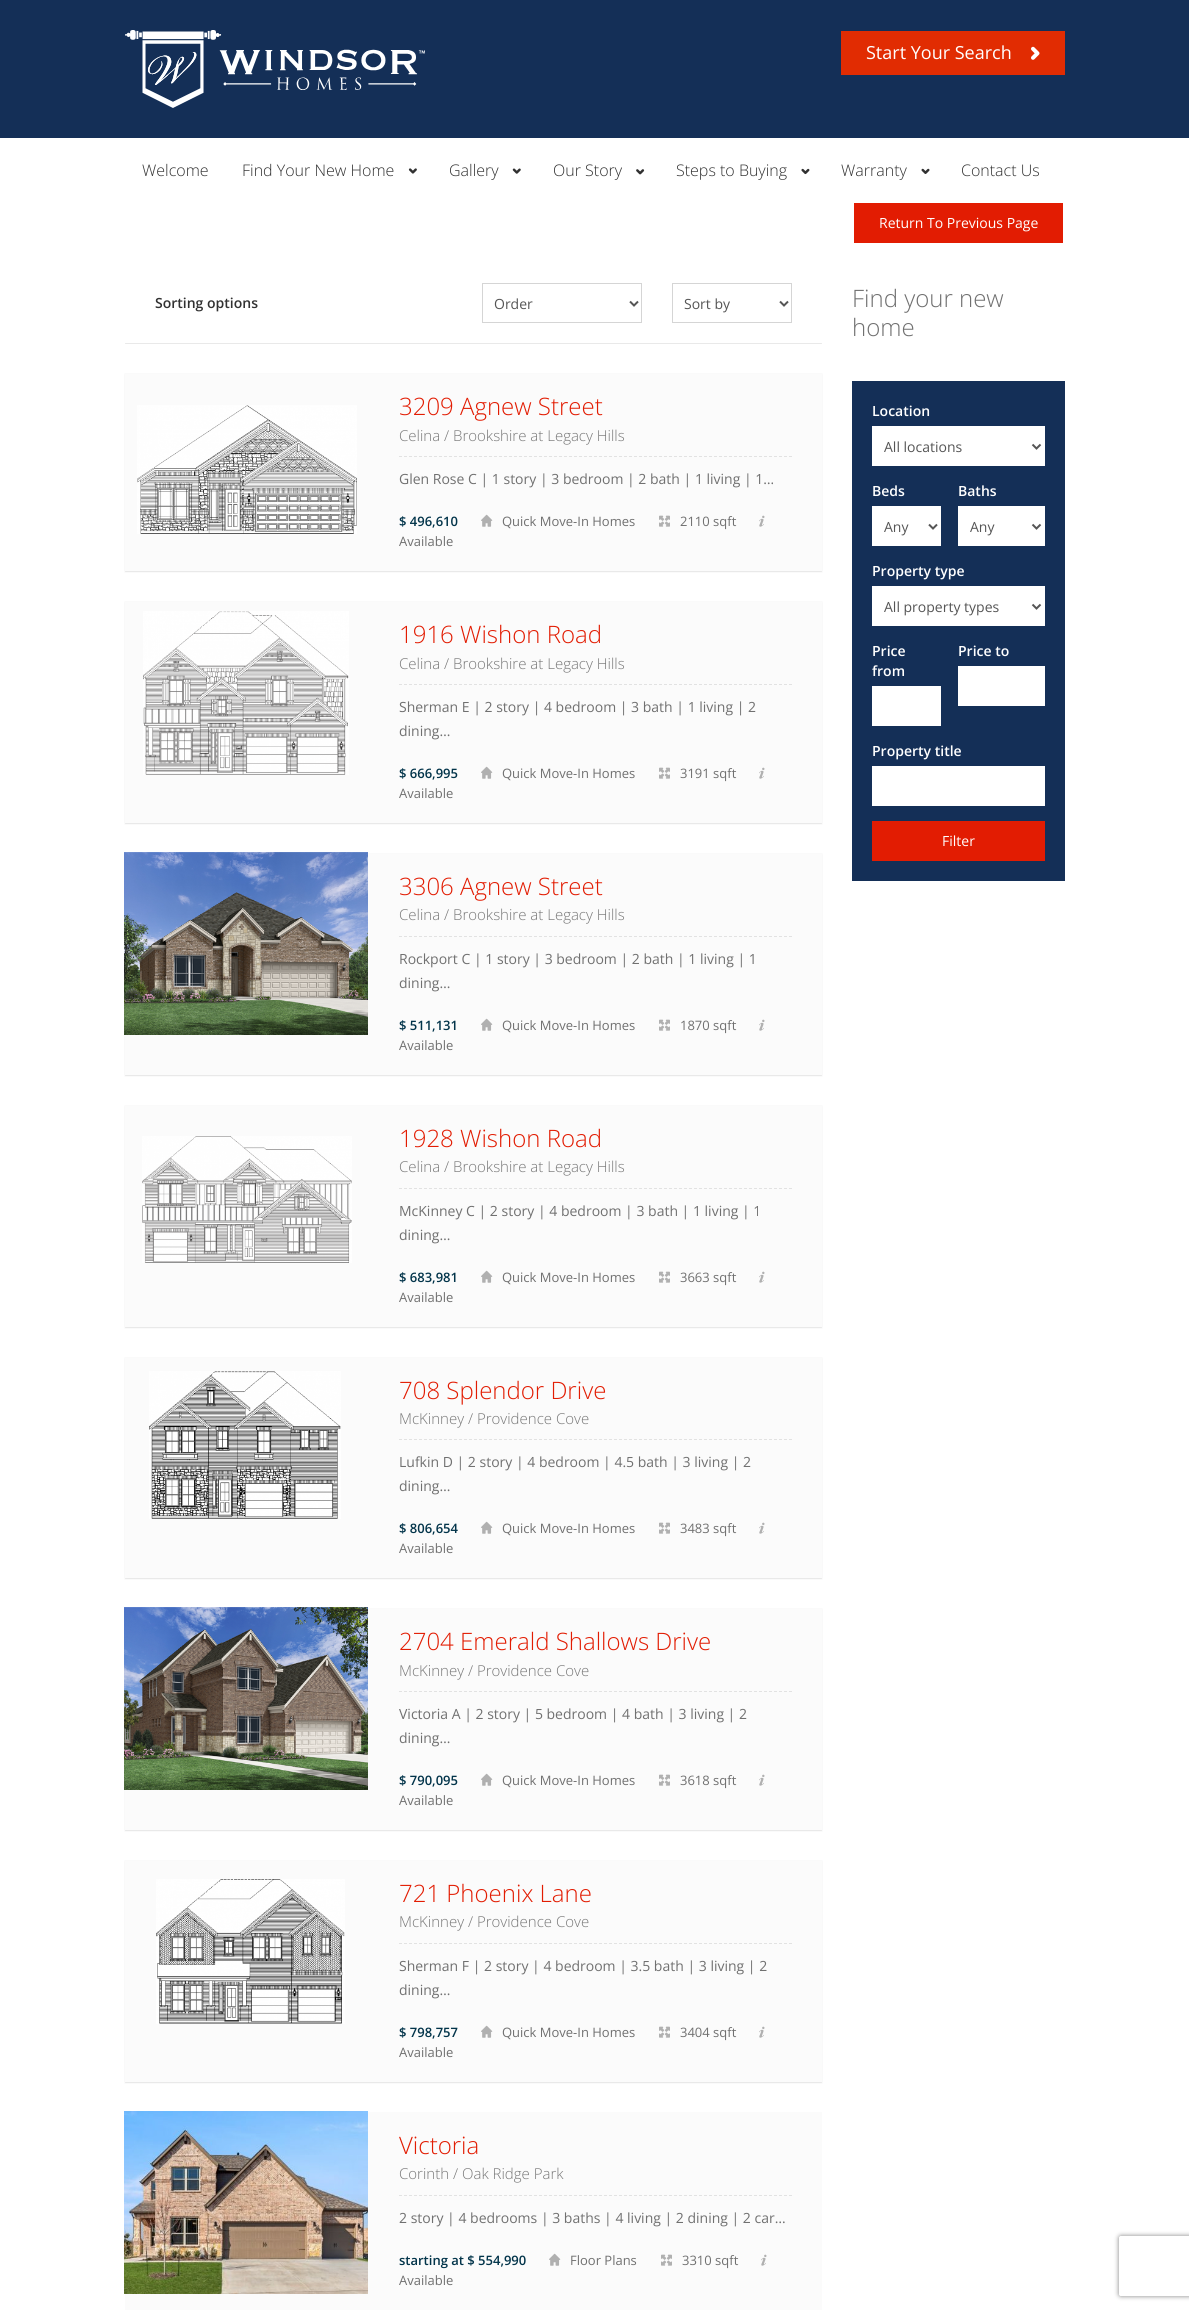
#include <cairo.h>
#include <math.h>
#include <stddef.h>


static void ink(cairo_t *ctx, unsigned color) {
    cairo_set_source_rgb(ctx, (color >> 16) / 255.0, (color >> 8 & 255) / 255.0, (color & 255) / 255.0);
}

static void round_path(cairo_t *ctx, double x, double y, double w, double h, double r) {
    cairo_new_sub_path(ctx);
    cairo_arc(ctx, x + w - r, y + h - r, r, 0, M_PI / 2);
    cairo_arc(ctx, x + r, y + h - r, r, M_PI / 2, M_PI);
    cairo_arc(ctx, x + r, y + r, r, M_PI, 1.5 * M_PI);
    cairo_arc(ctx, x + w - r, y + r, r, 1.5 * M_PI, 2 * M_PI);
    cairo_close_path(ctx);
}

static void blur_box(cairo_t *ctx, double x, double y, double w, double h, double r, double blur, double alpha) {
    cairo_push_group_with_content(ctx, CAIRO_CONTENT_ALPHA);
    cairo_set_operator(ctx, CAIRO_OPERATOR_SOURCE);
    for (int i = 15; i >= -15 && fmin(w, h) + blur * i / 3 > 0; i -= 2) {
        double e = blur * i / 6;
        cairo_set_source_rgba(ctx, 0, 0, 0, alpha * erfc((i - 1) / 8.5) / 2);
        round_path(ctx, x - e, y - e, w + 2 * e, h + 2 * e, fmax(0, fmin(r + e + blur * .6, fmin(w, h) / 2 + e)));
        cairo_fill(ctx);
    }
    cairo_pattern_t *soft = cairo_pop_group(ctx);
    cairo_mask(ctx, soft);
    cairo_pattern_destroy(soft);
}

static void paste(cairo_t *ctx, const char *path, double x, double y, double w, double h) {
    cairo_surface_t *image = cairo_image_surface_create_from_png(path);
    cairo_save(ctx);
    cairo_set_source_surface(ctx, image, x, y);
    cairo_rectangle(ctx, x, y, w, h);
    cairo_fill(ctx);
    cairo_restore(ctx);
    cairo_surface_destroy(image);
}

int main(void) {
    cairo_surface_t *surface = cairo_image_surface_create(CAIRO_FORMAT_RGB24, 1189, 2310);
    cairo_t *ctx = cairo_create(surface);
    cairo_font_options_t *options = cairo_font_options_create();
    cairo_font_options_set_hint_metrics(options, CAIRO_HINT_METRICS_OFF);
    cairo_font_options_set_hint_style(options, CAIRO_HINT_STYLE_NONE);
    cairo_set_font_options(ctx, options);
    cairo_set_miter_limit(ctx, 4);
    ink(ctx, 0xFFFFFF);
    cairo_paint(ctx);
    ink(ctx, 0x142F57);
    cairo_rectangle(ctx, 0, 0, 1189, 138);
    cairo_fill(ctx);
    paste(ctx, "media/1.png", 125, 30, 300, 78);
    ink(ctx, 0xE12C02);
    cairo_rectangle(ctx, 841, 31, 224, 44);
    cairo_fill(ctx);
    cairo_select_font_face(ctx, "Open Sans", CAIRO_FONT_SLANT_NORMAL, CAIRO_FONT_WEIGHT_NORMAL);
    cairo_set_font_size(ctx, 18);
    ink(ctx, 0xFFFFFF);
    cairo_move_to(ctx, 866, 59);
    cairo_show_text(ctx, "Start Your Search");
    paste(ctx, "media/2.png", 1031, 46, 9, 14);
    cairo_select_font_face(ctx, "Open Sans Light", CAIRO_FONT_SLANT_NORMAL, CAIRO_FONT_WEIGHT_NORMAL);
    cairo_set_font_size(ctx, 16);
    ink(ctx, 0x313131);
    cairo_move_to(ctx, 142, 176);
    cairo_show_text(ctx, "Welcome");
    cairo_move_to(ctx, 242, 176);
    cairo_show_text(ctx, "Find Your New Home");
    paste(ctx, "media/3.png", 408, 168, 9, 6);
    cairo_move_to(ctx, 449, 176);
    cairo_show_text(ctx, "Gallery");
    paste(ctx, "media/4.png", 512, 168, 9, 6);
    cairo_move_to(ctx, 553, 176);
    cairo_show_text(ctx, "Our Story");
    paste(ctx, "media/5.png", 636, 169, 9, 6);
    cairo_move_to(ctx, 676, 176);
    cairo_show_text(ctx, "Steps to Buying");
    paste(ctx, "media/6.png", 801, 168, 9, 7);
    cairo_move_to(ctx, 841, 176);
    cairo_show_text(ctx, "Warranty");
    paste(ctx, "media/7.png", 921, 168, 9, 6);
    cairo_move_to(ctx, 961, 176);
    cairo_show_text(ctx, "Contact Us");
    cairo_save(ctx);
    cairo_rectangle(ctx, 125, 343, 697, 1);
    cairo_clip(ctx);
    ink(ctx, 0x000000);
    blur_box(ctx, 125, 264, 697, 80, 0, 0.5, 0.1);
    cairo_restore(ctx);
    cairo_select_font_face(ctx, "Open Sans SemiBold", CAIRO_FONT_SLANT_NORMAL, CAIRO_FONT_WEIGHT_NORMAL);
    cairo_set_font_size(ctx, 14);
    cairo_move_to(ctx, 155, 308);
    cairo_show_text(ctx, "Sorting options");
    cairo_new_path(ctx);
    cairo_move_to(ctx, 630, 301.5);
    cairo_line_to(ctx, 634, 305.5);
    cairo_line_to(ctx, 638, 301.5);
    ink(ctx, 0x555555);
    cairo_stroke(ctx);
    cairo_rectangle(ctx, 482.5, 283.5, 159, 39);
    ink(ctx, 0xD5D5D5);
    cairo_set_line_width(ctx, 1);
    cairo_stroke(ctx);
    cairo_select_font_face(ctx, "Open Sans", CAIRO_FONT_SLANT_NORMAL, CAIRO_FONT_WEIGHT_NORMAL);
    ink(ctx, 0x555555);
    cairo_move_to(ctx, 494, 309);
    cairo_show_text(ctx, "Order");
    cairo_new_path(ctx);
    cairo_move_to(ctx, 780, 301.5);
    cairo_line_to(ctx, 784, 305.5);
    cairo_line_to(ctx, 788, 301.5);
    cairo_set_line_width(ctx, 2);
    cairo_stroke(ctx);
    cairo_rectangle(ctx, 672.5, 283.5, 119, 39);
    ink(ctx, 0xD5D5D5);
    cairo_set_line_width(ctx, 1);
    cairo_stroke(ctx);
    ink(ctx, 0x555555);
    cairo_move_to(ctx, 684, 309);
    cairo_show_text(ctx, "Sort by");
    ink(ctx, 0x000000);
    blur_box(ctx, 125, 374, 697, 198, 0, 0.5, 0.1);
    ink(ctx, 0xFBFBFB);
    cairo_rectangle(ctx, 125, 374, 697, 197);
    cairo_fill(ctx);
    paste(ctx, "media/8.png", 137, 405, 220, 129);
    cairo_select_font_face(ctx, "Open Sans Light", CAIRO_FONT_SLANT_NORMAL, CAIRO_FONT_WEIGHT_NORMAL);
    cairo_set_font_size(ctx, 24);
    ink(ctx, 0xE21C02);
    cairo_move_to(ctx, 399, 415);
    cairo_show_text(ctx, "3209 Agnew Street");
    cairo_new_path(ctx);
    cairo_move_to(ctx, 399, 456.5);
    cairo_line_to(ctx, 792, 456.5);
    ink(ctx, 0xE2E2E2);
    cairo_set_dash(ctx, (double[]){3, 2}, 2, 0);
    cairo_stroke(ctx);
    cairo_set_font_size(ctx, 15);
    ink(ctx, 0x777777);
    cairo_move_to(ctx, 399, 441);
    cairo_show_text(ctx, "Celina / Brookshire at Legacy Hills");
    cairo_select_font_face(ctx, "Open Sans", CAIRO_FONT_SLANT_NORMAL, CAIRO_FONT_WEIGHT_NORMAL);
    cairo_set_font_size(ctx, 14);
    ink(ctx, 0x707070);
    cairo_move_to(ctx, 399, 484);
    cairo_show_text(ctx, "Glen Rose C | 1 story | 3 bedroom | 2 bath | 1 living | 1…");
    cairo_select_font_face(ctx, "Open Sans SemiBold", CAIRO_FONT_SLANT_NORMAL, CAIRO_FONT_WEIGHT_NORMAL);
    cairo_set_font_size(ctx, 13);
    ink(ctx, 0x02344A);
    cairo_move_to(ctx, 399, 526);
    cairo_show_text(ctx, "$ 496,610");
    paste(ctx, "media/9.png", 481, 514, 12, 13);
    cairo_select_font_face(ctx, "Open Sans", CAIRO_FONT_SLANT_NORMAL, CAIRO_FONT_WEIGHT_NORMAL);
    ink(ctx, 0x707070);
    cairo_move_to(ctx, 502, 526);
    cairo_show_text(ctx, "Quick Move-In Homes");
    paste(ctx, "media/10.png", 659, 515, 11, 12);
    cairo_move_to(ctx, 680, 526);
    cairo_show_text(ctx, "2110 sqft");
    paste(ctx, "media/11.png", 759, 515, 6, 12);
    cairo_move_to(ctx, 399, 546);
    cairo_show_text(ctx, "Available");
    ink(ctx, 0x000000);
    blur_box(ctx, 125, 602, 697, 222, 0, 0.5, 0.1);
    ink(ctx, 0xFBFBFB);
    cairo_rectangle(ctx, 125, 602, 697, 221);
    cairo_fill(ctx);
    paste(ctx, "media/12.png", 143, 611, 206, 164);
    cairo_select_font_face(ctx, "Open Sans Light", CAIRO_FONT_SLANT_NORMAL, CAIRO_FONT_WEIGHT_NORMAL);
    cairo_set_font_size(ctx, 24);
    ink(ctx, 0xE21C02);
    cairo_move_to(ctx, 399, 643);
    cairo_show_text(ctx, "1916 Wishon Road");
    cairo_new_path(ctx);
    cairo_move_to(ctx, 399, 684.5);
    cairo_line_to(ctx, 792, 684.5);
    ink(ctx, 0xE2E2E2);
    cairo_stroke(ctx);
    cairo_set_font_size(ctx, 15);
    ink(ctx, 0x777777);
    cairo_move_to(ctx, 399, 669);
    cairo_show_text(ctx, "Celina / Brookshire at Legacy Hills");
    cairo_select_font_face(ctx, "Open Sans", CAIRO_FONT_SLANT_NORMAL, CAIRO_FONT_WEIGHT_NORMAL);
    cairo_set_font_size(ctx, 14);
    ink(ctx, 0x707070);
    cairo_move_to(ctx, 399, 712);
    cairo_show_text(ctx, "Sherman E | 2 story | 4 bedroom | 3 bath | 1 living | 2");
    cairo_move_to(ctx, 399, 736);
    cairo_show_text(ctx, "dining…");
    cairo_select_font_face(ctx, "Open Sans SemiBold", CAIRO_FONT_SLANT_NORMAL, CAIRO_FONT_WEIGHT_NORMAL);
    cairo_set_font_size(ctx, 13);
    ink(ctx, 0x02344A);
    cairo_move_to(ctx, 399, 778);
    cairo_show_text(ctx, "$ 666,995");
    paste(ctx, "media/9.png", 481, 766, 12, 13);
    cairo_select_font_face(ctx, "Open Sans", CAIRO_FONT_SLANT_NORMAL, CAIRO_FONT_WEIGHT_NORMAL);
    ink(ctx, 0x707070);
    cairo_move_to(ctx, 502, 778);
    cairo_show_text(ctx, "Quick Move-In Homes");
    paste(ctx, "media/10.png", 659, 767, 11, 12);
    cairo_move_to(ctx, 680, 778);
    cairo_show_text(ctx, "3191 sqft");
    paste(ctx, "media/11.png", 759, 767, 6, 12);
    cairo_move_to(ctx, 399, 798);
    cairo_show_text(ctx, "Available");
    ink(ctx, 0x000000);
    blur_box(ctx, 125, 854, 697, 222, 0, 0.5, 0.1);
    ink(ctx, 0xFBFBFB);
    cairo_rectangle(ctx, 125, 854, 697, 221);
    cairo_fill(ctx);
    paste(ctx, "media/13.png", 124, 852, 244, 183);
    cairo_select_font_face(ctx, "Open Sans Light", CAIRO_FONT_SLANT_NORMAL, CAIRO_FONT_WEIGHT_NORMAL);
    cairo_set_font_size(ctx, 24);
    ink(ctx, 0xE21C02);
    cairo_move_to(ctx, 399, 895);
    cairo_show_text(ctx, "3306 Agnew Street");
    cairo_new_path(ctx);
    cairo_move_to(ctx, 399, 936.5);
    cairo_line_to(ctx, 792, 936.5);
    ink(ctx, 0xE2E2E2);
    cairo_stroke(ctx);
    cairo_set_font_size(ctx, 15);
    ink(ctx, 0x777777);
    cairo_move_to(ctx, 399, 920);
    cairo_show_text(ctx, "Celina / Brookshire at Legacy Hills");
    cairo_select_font_face(ctx, "Open Sans", CAIRO_FONT_SLANT_NORMAL, CAIRO_FONT_WEIGHT_NORMAL);
    cairo_set_font_size(ctx, 14);
    ink(ctx, 0x707070);
    cairo_move_to(ctx, 399, 964);
    cairo_show_text(ctx, "Rockport C | 1 story | 3 bedroom | 2 bath | 1 living | 1");
    cairo_move_to(ctx, 399, 988);
    cairo_show_text(ctx, "dining…");
    cairo_select_font_face(ctx, "Open Sans SemiBold", CAIRO_FONT_SLANT_NORMAL, CAIRO_FONT_WEIGHT_NORMAL);
    cairo_set_font_size(ctx, 13);
    ink(ctx, 0x02344A);
    cairo_move_to(ctx, 399, 1030);
    cairo_show_text(ctx, "$ 511,131");
    paste(ctx, "media/9.png", 481, 1018, 12, 13);
    cairo_select_font_face(ctx, "Open Sans", CAIRO_FONT_SLANT_NORMAL, CAIRO_FONT_WEIGHT_NORMAL);
    ink(ctx, 0x707070);
    cairo_move_to(ctx, 502, 1030);
    cairo_show_text(ctx, "Quick Move-In Homes");
    paste(ctx, "media/10.png", 659, 1019, 11, 12);
    cairo_move_to(ctx, 680, 1030);
    cairo_show_text(ctx, "1870 sqft");
    paste(ctx, "media/11.png", 759, 1019, 6, 12);
    cairo_move_to(ctx, 399, 1050);
    cairo_show_text(ctx, "Available");
    ink(ctx, 0x000000);
    blur_box(ctx, 125, 1106, 697, 222, 0, 0.5, 0.1);
    ink(ctx, 0xFBFBFB);
    cairo_rectangle(ctx, 125, 1106, 697, 221);
    cairo_fill(ctx);
    paste(ctx, "media/14.png", 142, 1136, 210, 127);
    cairo_select_font_face(ctx, "Open Sans Light", CAIRO_FONT_SLANT_NORMAL, CAIRO_FONT_WEIGHT_NORMAL);
    cairo_set_font_size(ctx, 24);
    ink(ctx, 0xE21C02);
    cairo_move_to(ctx, 399, 1147);
    cairo_show_text(ctx, "1928 Wishon Road");
    cairo_new_path(ctx);
    cairo_move_to(ctx, 399, 1188.5);
    cairo_line_to(ctx, 792, 1188.5);
    ink(ctx, 0xE2E2E2);
    cairo_stroke(ctx);
    cairo_set_font_size(ctx, 15);
    ink(ctx, 0x777777);
    cairo_move_to(ctx, 399, 1172);
    cairo_show_text(ctx, "Celina / Brookshire at Legacy Hills");
    cairo_select_font_face(ctx, "Open Sans", CAIRO_FONT_SLANT_NORMAL, CAIRO_FONT_WEIGHT_NORMAL);
    cairo_set_font_size(ctx, 14);
    ink(ctx, 0x707070);
    cairo_move_to(ctx, 399, 1216);
    cairo_show_text(ctx, "McKinney C | 2 story | 4 bedroom | 3 bath | 1 living | 1");
    cairo_move_to(ctx, 399, 1240);
    cairo_show_text(ctx, "dining…");
    cairo_select_font_face(ctx, "Open Sans SemiBold", CAIRO_FONT_SLANT_NORMAL, CAIRO_FONT_WEIGHT_NORMAL);
    cairo_set_font_size(ctx, 13);
    ink(ctx, 0x02344A);
    cairo_move_to(ctx, 399, 1282);
    cairo_show_text(ctx, "$ 683,981");
    paste(ctx, "media/9.png", 481, 1270, 12, 13);
    cairo_select_font_face(ctx, "Open Sans", CAIRO_FONT_SLANT_NORMAL, CAIRO_FONT_WEIGHT_NORMAL);
    ink(ctx, 0x707070);
    cairo_move_to(ctx, 502, 1282);
    cairo_show_text(ctx, "Quick Move-In Homes");
    paste(ctx, "media/10.png", 659, 1271, 11, 12);
    cairo_move_to(ctx, 680, 1282);
    cairo_show_text(ctx, "3663 sqft");
    paste(ctx, "media/11.png", 759, 1271, 6, 12);
    cairo_move_to(ctx, 399, 1302);
    cairo_show_text(ctx, "Available");
    ink(ctx, 0x000000);
    blur_box(ctx, 125, 1358, 697, 221, 0, 0.5, 0.1);
    ink(ctx, 0xFBFBFB);
    cairo_rectangle(ctx, 125, 1358, 697, 220);
    cairo_fill(ctx);
    paste(ctx, "media/15.png", 149, 1371, 192, 148);
    cairo_select_font_face(ctx, "Open Sans Light", CAIRO_FONT_SLANT_NORMAL, CAIRO_FONT_WEIGHT_NORMAL);
    cairo_set_font_size(ctx, 24);
    ink(ctx, 0xE21C02);
    cairo_move_to(ctx, 399, 1399);
    cairo_show_text(ctx, "708 Splendor Drive");
    cairo_new_path(ctx);
    cairo_move_to(ctx, 399, 1439.5);
    cairo_line_to(ctx, 792, 1439.5);
    ink(ctx, 0xE2E2E2);
    cairo_stroke(ctx);
    cairo_set_font_size(ctx, 15);
    ink(ctx, 0x777777);
    cairo_move_to(ctx, 399, 1424);
    cairo_show_text(ctx, "McKinney / Providence Cove");
    cairo_select_font_face(ctx, "Open Sans", CAIRO_FONT_SLANT_NORMAL, CAIRO_FONT_WEIGHT_NORMAL);
    cairo_set_font_size(ctx, 14);
    ink(ctx, 0x707070);
    cairo_move_to(ctx, 399, 1467);
    cairo_show_text(ctx, "Lufkin D | 2 story | 4 bedroom | 4.5 bath | 3 living | 2");
    cairo_move_to(ctx, 399, 1491);
    cairo_show_text(ctx, "dining…");
    cairo_select_font_face(ctx, "Open Sans SemiBold", CAIRO_FONT_SLANT_NORMAL, CAIRO_FONT_WEIGHT_NORMAL);
    cairo_set_font_size(ctx, 13);
    ink(ctx, 0x02344A);
    cairo_move_to(ctx, 399, 1533);
    cairo_show_text(ctx, "$ 806,654");
    paste(ctx, "media/9.png", 481, 1521, 12, 13);
    cairo_select_font_face(ctx, "Open Sans", CAIRO_FONT_SLANT_NORMAL, CAIRO_FONT_WEIGHT_NORMAL);
    ink(ctx, 0x707070);
    cairo_move_to(ctx, 502, 1533);
    cairo_show_text(ctx, "Quick Move-In Homes");
    paste(ctx, "media/10.png", 659, 1522, 11, 12);
    cairo_move_to(ctx, 680, 1533);
    cairo_show_text(ctx, "3483 sqft");
    paste(ctx, "media/11.png", 759, 1522, 6, 12);
    cairo_move_to(ctx, 399, 1553);
    cairo_show_text(ctx, "Available");
    ink(ctx, 0x000000);
    blur_box(ctx, 125, 1609, 697, 222, 0, 0.5, 0.1);
    ink(ctx, 0xFBFBFB);
    cairo_rectangle(ctx, 125, 1609, 697, 221);
    cairo_fill(ctx);
    paste(ctx, "media/16.png", 124, 1607, 244, 183);
    cairo_select_font_face(ctx, "Open Sans Light", CAIRO_FONT_SLANT_NORMAL, CAIRO_FONT_WEIGHT_NORMAL);
    cairo_set_font_size(ctx, 24);
    ink(ctx, 0xE21C02);
    cairo_move_to(ctx, 399, 1650);
    cairo_show_text(ctx, "2704 Emerald Shallows Drive");
    cairo_new_path(ctx);
    cairo_move_to(ctx, 399, 1691.5);
    cairo_line_to(ctx, 792, 1691.5);
    ink(ctx, 0xE2E2E2);
    cairo_stroke(ctx);
    cairo_set_font_size(ctx, 15);
    ink(ctx, 0x777777);
    cairo_move_to(ctx, 399, 1676);
    cairo_show_text(ctx, "McKinney / Providence Cove");
    cairo_select_font_face(ctx, "Open Sans", CAIRO_FONT_SLANT_NORMAL, CAIRO_FONT_WEIGHT_NORMAL);
    cairo_set_font_size(ctx, 14);
    ink(ctx, 0x707070);
    cairo_move_to(ctx, 399, 1719);
    cairo_show_text(ctx, "Victoria A | 2 story | 5 bedroom | 4 bath | 3 living | 2");
    cairo_move_to(ctx, 399, 1743);
    cairo_show_text(ctx, "dining…");
    cairo_select_font_face(ctx, "Open Sans SemiBold", CAIRO_FONT_SLANT_NORMAL, CAIRO_FONT_WEIGHT_NORMAL);
    cairo_set_font_size(ctx, 13);
    ink(ctx, 0x02344A);
    cairo_move_to(ctx, 399, 1785);
    cairo_show_text(ctx, "$ 790,095");
    paste(ctx, "media/9.png", 481, 1773, 12, 13);
    cairo_select_font_face(ctx, "Open Sans", CAIRO_FONT_SLANT_NORMAL, CAIRO_FONT_WEIGHT_NORMAL);
    ink(ctx, 0x707070);
    cairo_move_to(ctx, 502, 1785);
    cairo_show_text(ctx, "Quick Move-In Homes");
    paste(ctx, "media/10.png", 659, 1774, 11, 12);
    cairo_move_to(ctx, 680, 1785);
    cairo_show_text(ctx, "3618 sqft");
    paste(ctx, "media/11.png", 759, 1774, 6, 12);
    cairo_move_to(ctx, 399, 1805);
    cairo_show_text(ctx, "Available");
    ink(ctx, 0x000000);
    blur_box(ctx, 125, 1861, 697, 222, 0, 0.5, 0.1);
    ink(ctx, 0xFBFBFB);
    cairo_rectangle(ctx, 125, 1861, 697, 221);
    cairo_fill(ctx);
    paste(ctx, "media/17.png", 156, 1879, 189, 145);
    cairo_select_font_face(ctx, "Open Sans Light", CAIRO_FONT_SLANT_NORMAL, CAIRO_FONT_WEIGHT_NORMAL);
    cairo_set_font_size(ctx, 24);
    ink(ctx, 0xE21C02);
    cairo_move_to(ctx, 399, 1902);
    cairo_show_text(ctx, "721 Phoenix Lane");
    cairo_new_path(ctx);
    cairo_move_to(ctx, 399, 1943.5);
    cairo_line_to(ctx, 792, 1943.5);
    ink(ctx, 0xE2E2E2);
    cairo_stroke(ctx);
    cairo_set_font_size(ctx, 15);
    ink(ctx, 0x777777);
    cairo_move_to(ctx, 399, 1927);
    cairo_show_text(ctx, "McKinney / Providence Cove");
    cairo_select_font_face(ctx, "Open Sans", CAIRO_FONT_SLANT_NORMAL, CAIRO_FONT_WEIGHT_NORMAL);
    cairo_set_font_size(ctx, 14);
    ink(ctx, 0x707070);
    cairo_move_to(ctx, 399, 1971);
    cairo_show_text(ctx, "Sherman F | 2 story | 4 bedroom | 3.5 bath | 3 living | 2");
    cairo_move_to(ctx, 399, 1995);
    cairo_show_text(ctx, "dining…");
    cairo_select_font_face(ctx, "Open Sans SemiBold", CAIRO_FONT_SLANT_NORMAL, CAIRO_FONT_WEIGHT_NORMAL);
    cairo_set_font_size(ctx, 13);
    ink(ctx, 0x02344A);
    cairo_move_to(ctx, 399, 2037);
    cairo_show_text(ctx, "$ 798,757");
    paste(ctx, "media/9.png", 481, 2025, 12, 13);
    cairo_select_font_face(ctx, "Open Sans", CAIRO_FONT_SLANT_NORMAL, CAIRO_FONT_WEIGHT_NORMAL);
    ink(ctx, 0x707070);
    cairo_move_to(ctx, 502, 2037);
    cairo_show_text(ctx, "Quick Move-In Homes");
    paste(ctx, "media/10.png", 659, 2026, 11, 12);
    cairo_move_to(ctx, 680, 2037);
    cairo_show_text(ctx, "3404 sqft");
    paste(ctx, "media/11.png", 759, 2026, 6, 12);
    cairo_move_to(ctx, 399, 2057);
    cairo_show_text(ctx, "Available");
    ink(ctx, 0xFBFBFB);
    cairo_rectangle(ctx, 125, 2112, 697, 198);
    cairo_fill(ctx);
    paste(ctx, "media/18.png", 124, 2111, 244, 183);
    cairo_select_font_face(ctx, "Open Sans Light", CAIRO_FONT_SLANT_NORMAL, CAIRO_FONT_WEIGHT_NORMAL);
    cairo_set_font_size(ctx, 24);
    ink(ctx, 0xE21C02);
    cairo_move_to(ctx, 399, 2154);
    cairo_show_text(ctx, "Victoria");
    cairo_new_path(ctx);
    cairo_move_to(ctx, 399, 2195.5);
    cairo_line_to(ctx, 792, 2195.5);
    ink(ctx, 0xE2E2E2);
    cairo_stroke(ctx);
    cairo_set_font_size(ctx, 15);
    ink(ctx, 0x777777);
    cairo_move_to(ctx, 399, 2179);
    cairo_show_text(ctx, "Corinth / Oak Ridge Park");
    cairo_select_font_face(ctx, "Open Sans", CAIRO_FONT_SLANT_NORMAL, CAIRO_FONT_WEIGHT_NORMAL);
    cairo_set_font_size(ctx, 14);
    ink(ctx, 0x707070);
    cairo_move_to(ctx, 399, 2223);
    cairo_show_text(ctx, "2 story | 4 bedrooms | 3 baths | 4 living | 2 dining | 2 car…");
    cairo_select_font_face(ctx, "Open Sans SemiBold", CAIRO_FONT_SLANT_NORMAL, CAIRO_FONT_WEIGHT_NORMAL);
    cairo_set_font_size(ctx, 13);
    ink(ctx, 0x02344A);
    cairo_move_to(ctx, 399, 2265);
    cairo_show_text(ctx, "starting at $ 554,990");
    paste(ctx, "media/9.png", 549, 2253, 12, 13);
    cairo_select_font_face(ctx, "Open Sans", CAIRO_FONT_SLANT_NORMAL, CAIRO_FONT_WEIGHT_NORMAL);
    ink(ctx, 0x707070);
    cairo_move_to(ctx, 570, 2265);
    cairo_show_text(ctx, "Floor Plans");
    paste(ctx, "media/10.png", 661, 2254, 11, 12);
    cairo_move_to(ctx, 682, 2265);
    cairo_show_text(ctx, "3310 sqft");
    paste(ctx, "media/11.png", 761, 2254, 6, 12);
    cairo_move_to(ctx, 399, 2285);
    cairo_show_text(ctx, "Available");
    ink(ctx, 0xE21C02);
    cairo_rectangle(ctx, 854, 203, 209, 40);
    cairo_fill(ctx);
    cairo_set_font_size(ctx, 14);
    ink(ctx, 0xFFFFFF);
    cairo_move_to(ctx, 879, 228);
    cairo_show_text(ctx, "Return To Previous Page");
    cairo_select_font_face(ctx, "Open Sans Light", CAIRO_FONT_SLANT_NORMAL, CAIRO_FONT_WEIGHT_NORMAL);
    cairo_set_font_size(ctx, 24);
    ink(ctx, 0x707070);
    cairo_move_to(ctx, 852, 307);
    cairo_show_text(ctx, "Find your new");
    cairo_move_to(ctx, 852, 336);
    cairo_show_text(ctx, "home");
    ink(ctx, 0x142F57);
    cairo_rectangle(ctx, 852, 381, 213, 500);
    cairo_fill(ctx);
    cairo_select_font_face(ctx, "Open Sans SemiBold", CAIRO_FONT_SLANT_NORMAL, CAIRO_FONT_WEIGHT_NORMAL);
    cairo_set_font_size(ctx, 14);
    ink(ctx, 0xFFFFFF);
    cairo_move_to(ctx, 872, 416);
    cairo_show_text(ctx, "Location");
    cairo_rectangle(ctx, 872, 426, 173, 40);
    cairo_fill(ctx);
    cairo_new_path(ctx);
    cairo_move_to(ctx, 1032.5, 444.5);
    cairo_line_to(ctx, 1036.5, 448.5);
    cairo_line_to(ctx, 1040.5, 444.5);
    ink(ctx, 0x555555);
    cairo_set_line_width(ctx, 2);
    cairo_set_dash(ctx, NULL, 0, 0);
    cairo_stroke(ctx);
    cairo_select_font_face(ctx, "Open Sans", CAIRO_FONT_SLANT_NORMAL, CAIRO_FONT_WEIGHT_NORMAL);
    cairo_move_to(ctx, 884, 452);
    cairo_show_text(ctx, "All locations");
    cairo_select_font_face(ctx, "Open Sans SemiBold", CAIRO_FONT_SLANT_NORMAL, CAIRO_FONT_WEIGHT_NORMAL);
    ink(ctx, 0xFFFFFF);
    cairo_move_to(ctx, 872, 496);
    cairo_show_text(ctx, "Beds");
    cairo_rectangle(ctx, 872, 506, 69, 40);
    cairo_fill(ctx);
    cairo_new_path(ctx);
    cairo_move_to(ctx, 929, 524.5);
    cairo_line_to(ctx, 933, 528.5);
    cairo_line_to(ctx, 937, 524.5);
    ink(ctx, 0x555555);
    cairo_stroke(ctx);
    cairo_select_font_face(ctx, "Open Sans", CAIRO_FONT_SLANT_NORMAL, CAIRO_FONT_WEIGHT_NORMAL);
    cairo_move_to(ctx, 884, 532);
    cairo_show_text(ctx, "Any");
    cairo_select_font_face(ctx, "Open Sans SemiBold", CAIRO_FONT_SLANT_NORMAL, CAIRO_FONT_WEIGHT_NORMAL);
    ink(ctx, 0xFFFFFF);
    cairo_move_to(ctx, 958, 496);
    cairo_show_text(ctx, "Baths");
    cairo_rectangle(ctx, 958, 506, 87, 40);
    cairo_fill(ctx);
    cairo_new_path(ctx);
    cairo_move_to(ctx, 1032.5, 524.5);
    cairo_line_to(ctx, 1036.5, 528.5);
    cairo_line_to(ctx, 1040.5, 524.5);
    ink(ctx, 0x555555);
    cairo_stroke(ctx);
    cairo_select_font_face(ctx, "Open Sans", CAIRO_FONT_SLANT_NORMAL, CAIRO_FONT_WEIGHT_NORMAL);
    cairo_move_to(ctx, 970, 532);
    cairo_show_text(ctx, "Any");
    cairo_select_font_face(ctx, "Open Sans SemiBold", CAIRO_FONT_SLANT_NORMAL, CAIRO_FONT_WEIGHT_NORMAL);
    ink(ctx, 0xFFFFFF);
    cairo_move_to(ctx, 872, 576);
    cairo_show_text(ctx, "Property type");
    cairo_rectangle(ctx, 872, 586, 173, 40);
    cairo_fill(ctx);
    cairo_new_path(ctx);
    cairo_move_to(ctx, 1032.5, 604.5);
    cairo_line_to(ctx, 1036.5, 608.5);
    cairo_line_to(ctx, 1040.5, 604.5);
    ink(ctx, 0x555555);
    cairo_stroke(ctx);
    cairo_select_font_face(ctx, "Open Sans", CAIRO_FONT_SLANT_NORMAL, CAIRO_FONT_WEIGHT_NORMAL);
    cairo_move_to(ctx, 884, 612);
    cairo_show_text(ctx, "All property types");
    cairo_select_font_face(ctx, "Open Sans SemiBold", CAIRO_FONT_SLANT_NORMAL, CAIRO_FONT_WEIGHT_NORMAL);
    ink(ctx, 0xFFFFFF);
    cairo_move_to(ctx, 872, 656);
    cairo_show_text(ctx, "Price");
    cairo_move_to(ctx, 872, 676);
    cairo_show_text(ctx, "from");
    cairo_rectangle(ctx, 872, 686, 69, 40);
    cairo_fill(ctx);
    cairo_move_to(ctx, 958, 656);
    cairo_show_text(ctx, "Price to");
    cairo_rectangle(ctx, 958, 666, 87, 40);
    cairo_fill(ctx);
    cairo_move_to(ctx, 872, 756);
    cairo_show_text(ctx, "Property title");
    cairo_rectangle(ctx, 872, 766, 173, 40);
    cairo_fill(ctx);
    ink(ctx, 0xE21C02);
    cairo_rectangle(ctx, 872, 821, 173, 40);
    cairo_fill(ctx);
    cairo_select_font_face(ctx, "Open Sans", CAIRO_FONT_SLANT_NORMAL, CAIRO_FONT_WEIGHT_NORMAL);
    ink(ctx, 0xFFFFFF);
    cairo_move_to(ctx, 942, 846);
    cairo_show_text(ctx, "Filter");
    cairo_save(ctx);
    cairo_set_fill_rule(ctx, CAIRO_FILL_RULE_EVEN_ODD);
    cairo_new_path(ctx);
    cairo_move_to(ctx, 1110, 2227);
    cairo_line_to(ctx, 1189, 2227);
    cairo_line_to(ctx, 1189, 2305);
    cairo_line_to(ctx, 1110, 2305);
    cairo_close_path(ctx);
    cairo_move_to(ctx, 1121, 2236);
    cairo_line_to(ctx, 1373, 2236);
    cairo_curve_to(ctx, 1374, 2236, 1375, 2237, 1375, 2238);
    cairo_line_to(ctx, 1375, 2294);
    cairo_curve_to(ctx, 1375, 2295, 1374, 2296, 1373, 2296);
    cairo_line_to(ctx, 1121, 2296);
    cairo_curve_to(ctx, 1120, 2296, 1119, 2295, 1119, 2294);
    cairo_line_to(ctx, 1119, 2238);
    cairo_curve_to(ctx, 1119, 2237, 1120, 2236, 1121, 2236);
    cairo_close_path(ctx);
    cairo_clip(ctx);
    ink(ctx, 0x808080);
    blur_box(ctx, 1119, 2236, 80, 60, 2, 2.5, 1);
    cairo_restore(ctx);
    cairo_surface_write_to_png(surface, "image.png");
    cairo_font_options_destroy(options);
    cairo_destroy(ctx);
    cairo_surface_destroy(surface);
    return 0;
}
